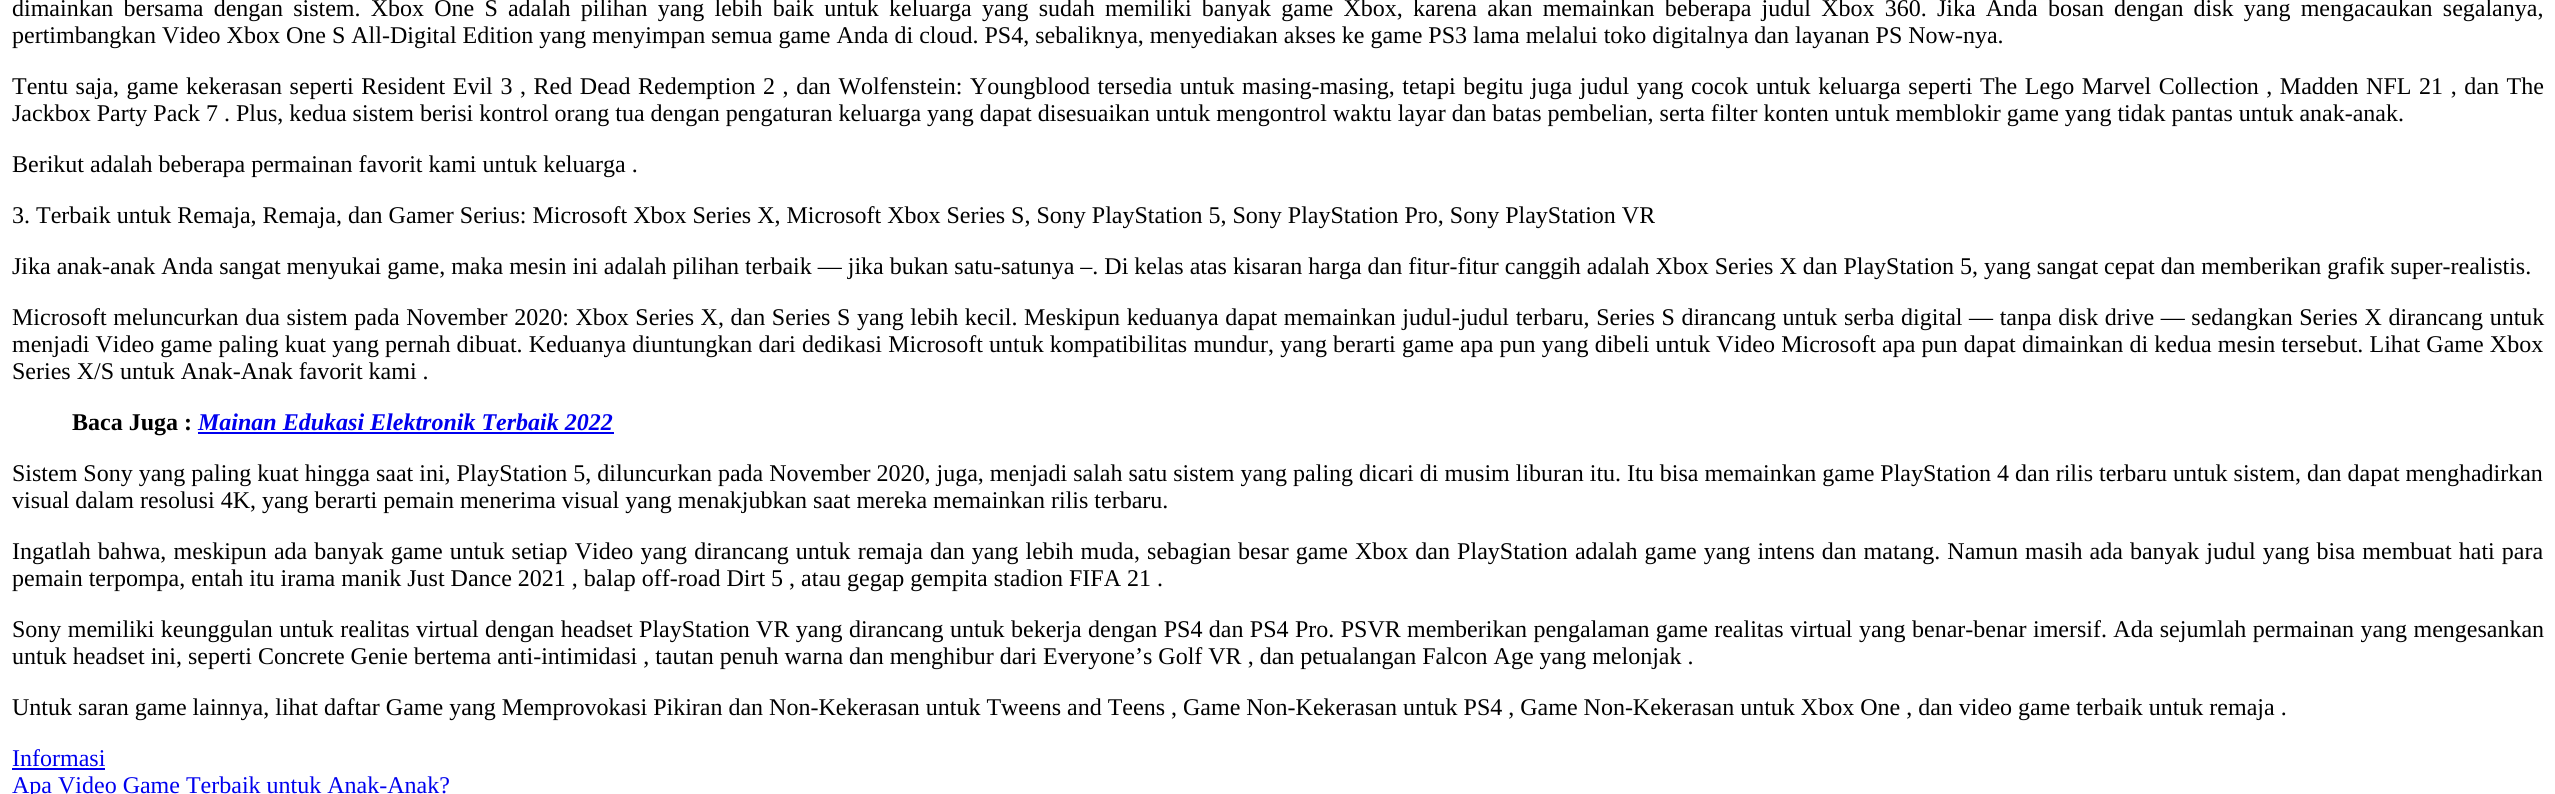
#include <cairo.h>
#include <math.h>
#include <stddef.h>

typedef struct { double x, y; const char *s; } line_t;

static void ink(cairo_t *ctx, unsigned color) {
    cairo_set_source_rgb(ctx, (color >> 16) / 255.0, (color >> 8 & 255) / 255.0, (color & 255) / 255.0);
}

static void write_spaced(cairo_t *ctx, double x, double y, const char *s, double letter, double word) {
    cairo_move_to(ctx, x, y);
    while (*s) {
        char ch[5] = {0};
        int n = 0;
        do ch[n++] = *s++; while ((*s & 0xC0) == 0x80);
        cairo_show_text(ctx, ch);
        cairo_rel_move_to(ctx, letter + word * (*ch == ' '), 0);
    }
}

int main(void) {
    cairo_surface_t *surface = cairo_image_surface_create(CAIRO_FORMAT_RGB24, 2555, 794);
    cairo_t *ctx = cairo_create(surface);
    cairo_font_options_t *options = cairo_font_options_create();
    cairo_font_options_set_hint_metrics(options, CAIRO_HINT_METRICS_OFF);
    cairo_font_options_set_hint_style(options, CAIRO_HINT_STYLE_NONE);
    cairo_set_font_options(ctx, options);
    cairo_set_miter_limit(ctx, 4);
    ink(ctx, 0xFFFFFF);
    cairo_paint(ctx);
    cairo_select_font_face(ctx, "Liberation Serif", CAIRO_FONT_SLANT_NORMAL, CAIRO_FONT_WEIGHT_NORMAL);
    cairo_set_font_size(ctx, 24);
    ink(ctx, 0x000000);
    write_spaced(ctx, 12, 16, "dimainkan bersama dengan sistem. Xbox One S adalah pilihan yang lebih baik untuk keluarga yang sudah memiliki banyak game Xbox, karena akan memainkan beberapa judul Xbox 360. Jika Anda bosan dengan disk yang mengacaukan segalanya,", 0, 4.2);
    cairo_move_to(ctx, 12, 43);
    cairo_show_text(ctx, "pertimbangkan Video Xbox One S All-Digital Edition yang menyimpan semua game Anda di cloud. PS4, sebaliknya, menyediakan akses ke game PS3 lama melalui toko digitalnya dan layanan PS Now-nya.");
    write_spaced(ctx, 12, 94, "Tentu saja, game kekerasan seperti Resident Evil 3 , Red Dead Redemption 2 , dan Wolfenstein: Youngblood tersedia untuk masing-masing, tetapi begitu juga judul yang cocok untuk keluarga seperti The Lego Marvel Collection , Madden NFL 21 , dan The", 0, 1.6);
    {
        static const line_t items[] = {
            {12, 121, "Jackbox Party Pack 7 . Plus, kedua sistem berisi kontrol orang tua dengan pengaturan keluarga yang dapat disesuaikan untuk mengontrol waktu layar dan batas pembelian, serta filter konten untuk memblokir game yang tidak pantas untuk anak-anak."},
            {12, 172, "Berikut adalah beberapa permainan favorit kami untuk keluarga ."},
            {12, 223, "3. Terbaik untuk Remaja, Remaja, dan Gamer Serius: Microsoft Xbox Series X, Microsoft Xbox Series S, Sony PlayStation 5, Sony PlayStation Pro, Sony PlayStation VR"},
            {12, 274, "Jika anak-anak Anda sangat menyukai game, maka mesin ini adalah pilihan terbaik — jika bukan satu-satunya –. Di kelas atas kisaran harga dan fitur-fitur canggih adalah Xbox Series X dan PlayStation 5, yang sangat cepat dan memberikan grafik super-realistis."},
        };
        for (size_t i = 0; i < sizeof items / sizeof *items; i++) {
            cairo_move_to(ctx, items[i].x, items[i].y);
            cairo_show_text(ctx, items[i].s);
        }
    }
    write_spaced(ctx, 12, 325, "Microsoft meluncurkan dua sistem pada November 2020: Xbox Series X, dan Series S yang lebih kecil. Meskipun keduanya dapat memainkan judul-judul terbaru, Series S dirancang untuk serba digital — tanpa disk drive — sedangkan Series X dirancang untuk", 0, 0.6);
    write_spaced(ctx, 12, 352, "menjadi Video game paling kuat yang pernah dibuat. Keduanya diuntungkan dari dedikasi Microsoft untuk kompatibilitas mundur, yang berarti game apa pun yang dibeli untuk Video Microsoft apa pun dapat dimainkan di kedua mesin tersebut. Lihat Game Xbox", 0, 0.2);
    cairo_move_to(ctx, 12, 379);
    cairo_show_text(ctx, "Series X/S untuk Anak-Anak favorit kami .");
    cairo_select_font_face(ctx, "Liberation Serif", CAIRO_FONT_SLANT_NORMAL, CAIRO_FONT_WEIGHT_BOLD);
    cairo_move_to(ctx, 72, 430);
    cairo_show_text(ctx, "Baca Juga :");
    cairo_select_font_face(ctx, "Liberation Serif", CAIRO_FONT_SLANT_ITALIC, CAIRO_FONT_WEIGHT_BOLD);
    ink(ctx, 0x0000EE);
    cairo_move_to(ctx, 198, 430);
    cairo_show_text(ctx, "Mainan Edukasi Elektronik Terbaik 2022");
    cairo_rectangle(ctx, 198, 432, 416, 2);
    cairo_fill(ctx);
    cairo_select_font_face(ctx, "Liberation Serif", CAIRO_FONT_SLANT_NORMAL, CAIRO_FONT_WEIGHT_NORMAL);
    ink(ctx, 0x000000);
    cairo_move_to(ctx, 12, 481);
    cairo_show_text(ctx, "Sistem Sony yang paling kuat hingga saat ini, PlayStation 5, diluncurkan pada November 2020, juga, menjadi salah satu sistem yang paling dicari di musim liburan itu. Itu bisa memainkan game PlayStation 4 dan rilis terbaru untuk sistem, dan dapat menghadirkan");
    cairo_move_to(ctx, 12, 508);
    cairo_show_text(ctx, "visual dalam resolusi 4K, yang berarti pemain menerima visual yang menakjubkan saat mereka memainkan rilis terbaru.");
    write_spaced(ctx, 12, 559, "Ingatlah bahwa, meskipun ada banyak game untuk setiap Video yang dirancang untuk remaja dan yang lebih muda, sebagian besar game Xbox dan PlayStation adalah game yang intens dan matang. Namun masih ada banyak judul yang bisa membuat hati para", 0, 1.1);
    cairo_move_to(ctx, 12, 586);
    cairo_show_text(ctx, "pemain terpompa, entah itu irama manik Just Dance 2021 , balap off-road Dirt 5 , atau gegap gempita stadion FIFA 21 .");
    write_spaced(ctx, 12, 637, "Sony memiliki keunggulan untuk realitas virtual dengan headset PlayStation VR yang dirancang untuk bekerja dengan PS4 dan PS4 Pro. PSVR memberikan pengalaman game realitas virtual yang benar-benar imersif. Ada sejumlah permainan yang mengesankan", 0, 0.4);
    cairo_move_to(ctx, 12, 664);
    cairo_show_text(ctx, "untuk headset ini, seperti Concrete Genie bertema anti-intimidasi , tautan penuh warna dan menghibur dari Everyone’s Golf VR , dan petualangan Falcon Age yang melonjak .");
    cairo_move_to(ctx, 12, 715);
    cairo_show_text(ctx, "Untuk saran game lainnya, lihat daftar Game yang Memprovokasi Pikiran dan Non-Kekerasan untuk Tweens and Teens , Game Non-Kekerasan untuk PS4 , Game Non-Kekerasan untuk Xbox One , dan video game terbaik untuk remaja .");
    ink(ctx, 0x0000EE);
    cairo_move_to(ctx, 12, 766);
    cairo_show_text(ctx, "Informasi");
    cairo_rectangle(ctx, 12, 768, 93, 2);
    cairo_fill(ctx);
    cairo_move_to(ctx, 12, 793);
    cairo_show_text(ctx, "Apa Video Game Terbaik untuk Anak-Anak?");
    cairo_surface_write_to_png(surface, "image.png");
    cairo_font_options_destroy(options);
    cairo_destroy(ctx);
    cairo_surface_destroy(surface);
    return 0;
}
